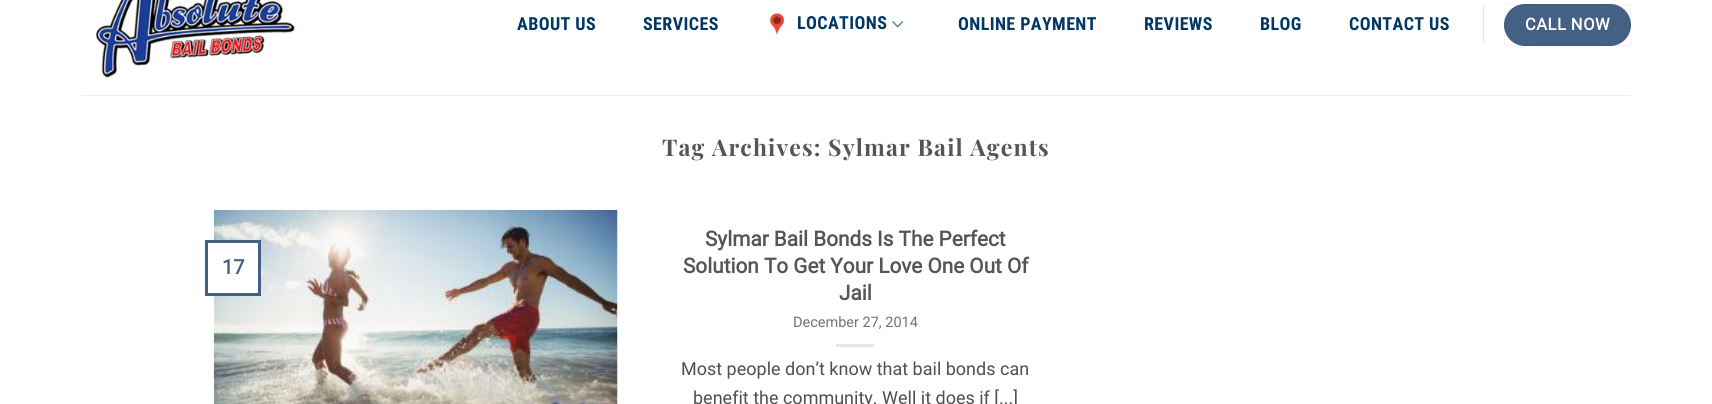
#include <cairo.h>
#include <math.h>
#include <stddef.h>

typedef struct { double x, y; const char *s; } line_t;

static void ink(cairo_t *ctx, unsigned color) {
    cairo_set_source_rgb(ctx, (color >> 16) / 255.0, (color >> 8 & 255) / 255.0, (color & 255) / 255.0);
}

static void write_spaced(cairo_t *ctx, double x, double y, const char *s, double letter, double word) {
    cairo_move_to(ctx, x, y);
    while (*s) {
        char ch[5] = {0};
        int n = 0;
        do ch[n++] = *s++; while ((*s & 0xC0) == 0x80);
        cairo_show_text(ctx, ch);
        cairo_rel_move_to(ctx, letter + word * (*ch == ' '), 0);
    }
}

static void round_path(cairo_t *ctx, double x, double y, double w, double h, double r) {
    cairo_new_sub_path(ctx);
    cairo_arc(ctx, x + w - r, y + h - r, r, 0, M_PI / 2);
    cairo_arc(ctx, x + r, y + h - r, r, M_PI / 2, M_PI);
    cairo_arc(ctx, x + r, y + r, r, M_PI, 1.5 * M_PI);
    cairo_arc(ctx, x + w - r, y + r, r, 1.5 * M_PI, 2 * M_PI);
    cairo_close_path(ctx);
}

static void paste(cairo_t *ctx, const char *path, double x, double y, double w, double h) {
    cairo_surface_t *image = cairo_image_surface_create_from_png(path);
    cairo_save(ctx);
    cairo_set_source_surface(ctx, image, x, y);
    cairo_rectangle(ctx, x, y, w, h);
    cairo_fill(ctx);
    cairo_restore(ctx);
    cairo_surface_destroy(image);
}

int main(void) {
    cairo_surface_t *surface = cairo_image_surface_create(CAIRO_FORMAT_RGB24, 1712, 404);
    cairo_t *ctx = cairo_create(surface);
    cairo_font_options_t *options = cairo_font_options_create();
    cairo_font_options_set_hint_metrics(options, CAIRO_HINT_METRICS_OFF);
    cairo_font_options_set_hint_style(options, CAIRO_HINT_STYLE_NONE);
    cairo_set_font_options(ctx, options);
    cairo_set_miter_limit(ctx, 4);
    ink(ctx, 0xFFFFFF);
    cairo_paint(ctx);
    paste(ctx, "media/1.png", 95, 0, 200, 78);
    cairo_select_font_face(ctx, "Roboto Condensed", CAIRO_FONT_SLANT_NORMAL, CAIRO_FONT_WEIGHT_BOLD);
    cairo_set_font_size(ctx, 18);
    ink(ctx, 0x003764);
    write_spaced(ctx, 517, 30, "ABOUT US", 0.4, 0);
    write_spaced(ctx, 643, 30, "SERVICES", 0.4, 0);
    paste(ctx, "media/2.png", 769, 13, 16, 22);
    write_spaced(ctx, 797, 29, "LOCATIONS", 0.4, 0);
    paste(ctx, "media/3.png", 892, 21, 12, 7);
    {
        static const line_t items[] = {
            {958, 30, "ONLINE PAYMENT"},
            {1144, 30, "REVIEWS"},
            {1260, 30, "BLOG"},
            {1349, 30, "CONTACT US"},
        };
        for (size_t i = 0; i < sizeof items / sizeof *items; i++) {
            write_spaced(ctx, items[i].x, items[i].y, items[i].s, 0.4, 0);
        }
    }
    ink(ctx, 0xE6E6E6);
    cairo_rectangle(ctx, 1483, 6, 1, 38);
    cairo_fill(ctx);
    ink(ctx, 0x446084);
    round_path(ctx, 1504, 4, 127, 42, 21);
    cairo_fill(ctx);
    cairo_rectangle(ctx, 1504.5, 4.5, 126, 41);
    cairo_set_source_rgba(ctx, 0, 0, 0, 0.05);
    cairo_set_line_width(ctx, 1);
    cairo_stroke(ctx);
    cairo_select_font_face(ctx, "Roboto", CAIRO_FONT_SLANT_NORMAL, CAIRO_FONT_WEIGHT_BOLD);
    cairo_set_font_size(ctx, 16.5);
    ink(ctx, 0xFFFFFF);
    write_spaced(ctx, 1525, 30, "CALL NOW", 0.5, 0);
    ink(ctx, 0xEDEDED);
    cairo_rectangle(ctx, 81, 95, 1550, 1);
    cairo_fill(ctx);
    cairo_select_font_face(ctx, "Playfair Display", CAIRO_FONT_SLANT_NORMAL, CAIRO_FONT_WEIGHT_BOLD);
    cairo_set_font_size(ctx, 23);
    ink(ctx, 0x555555);
    write_spaced(ctx, 662, 156, "Tag Archives: Sylmar Bail Agents", 1.15, 0);
    paste(ctx, "media/4.png", 213, 209, 405, 195);
    ink(ctx, 0xFFFFFF);
    cairo_rectangle(ctx, 213, 243, 45, 50);
    cairo_fill(ctx);
    cairo_rectangle(ctx, 206.5, 241.5, 53, 53);
    ink(ctx, 0x446084);
    cairo_set_line_width(ctx, 3);
    cairo_stroke(ctx);
    cairo_select_font_face(ctx, "Roboto", CAIRO_FONT_SLANT_NORMAL, CAIRO_FONT_WEIGHT_BOLD);
    cairo_set_font_size(ctx, 20);
    cairo_move_to(ctx, 222, 274);
    cairo_show_text(ctx, "17");
    cairo_set_font_size(ctx, 20.75);
    ink(ctx, 0x555555);
    {
        static const line_t items[] = {
            {705, 246, "Sylmar Bail Bonds Is The Perfect"},
            {683, 273, "Solution To Get Your Love One Out Of"},
            {839, 300, "Jail"},
        };
        for (size_t i = 0; i < sizeof items / sizeof *items; i++) {
            cairo_move_to(ctx, items[i].x, items[i].y);
            cairo_show_text(ctx, items[i].s);
        }
    }
    cairo_select_font_face(ctx, "Roboto", CAIRO_FONT_SLANT_NORMAL, CAIRO_FONT_WEIGHT_NORMAL);
    cairo_set_font_size(ctx, 14.5);
    ink(ctx, 0x727272);
    cairo_move_to(ctx, 793, 327);
    cairo_show_text(ctx, "December 27, 2014");
    ink(ctx, 0xE6E6E6);
    cairo_rectangle(ctx, 836, 344, 38, 3);
    cairo_fill(ctx);
    cairo_set_font_size(ctx, 18);
    ink(ctx, 0x4F4F4F);
    cairo_move_to(ctx, 681, 375);
    cairo_show_text(ctx, "Most people don’t know that bail bonds can");
    cairo_move_to(ctx, 693, 404);
    cairo_show_text(ctx, "benefit the community. Well it does if [...]");
    cairo_surface_write_to_png(surface, "image.png");
    cairo_font_options_destroy(options);
    cairo_destroy(ctx);
    cairo_surface_destroy(surface);
    return 0;
}
